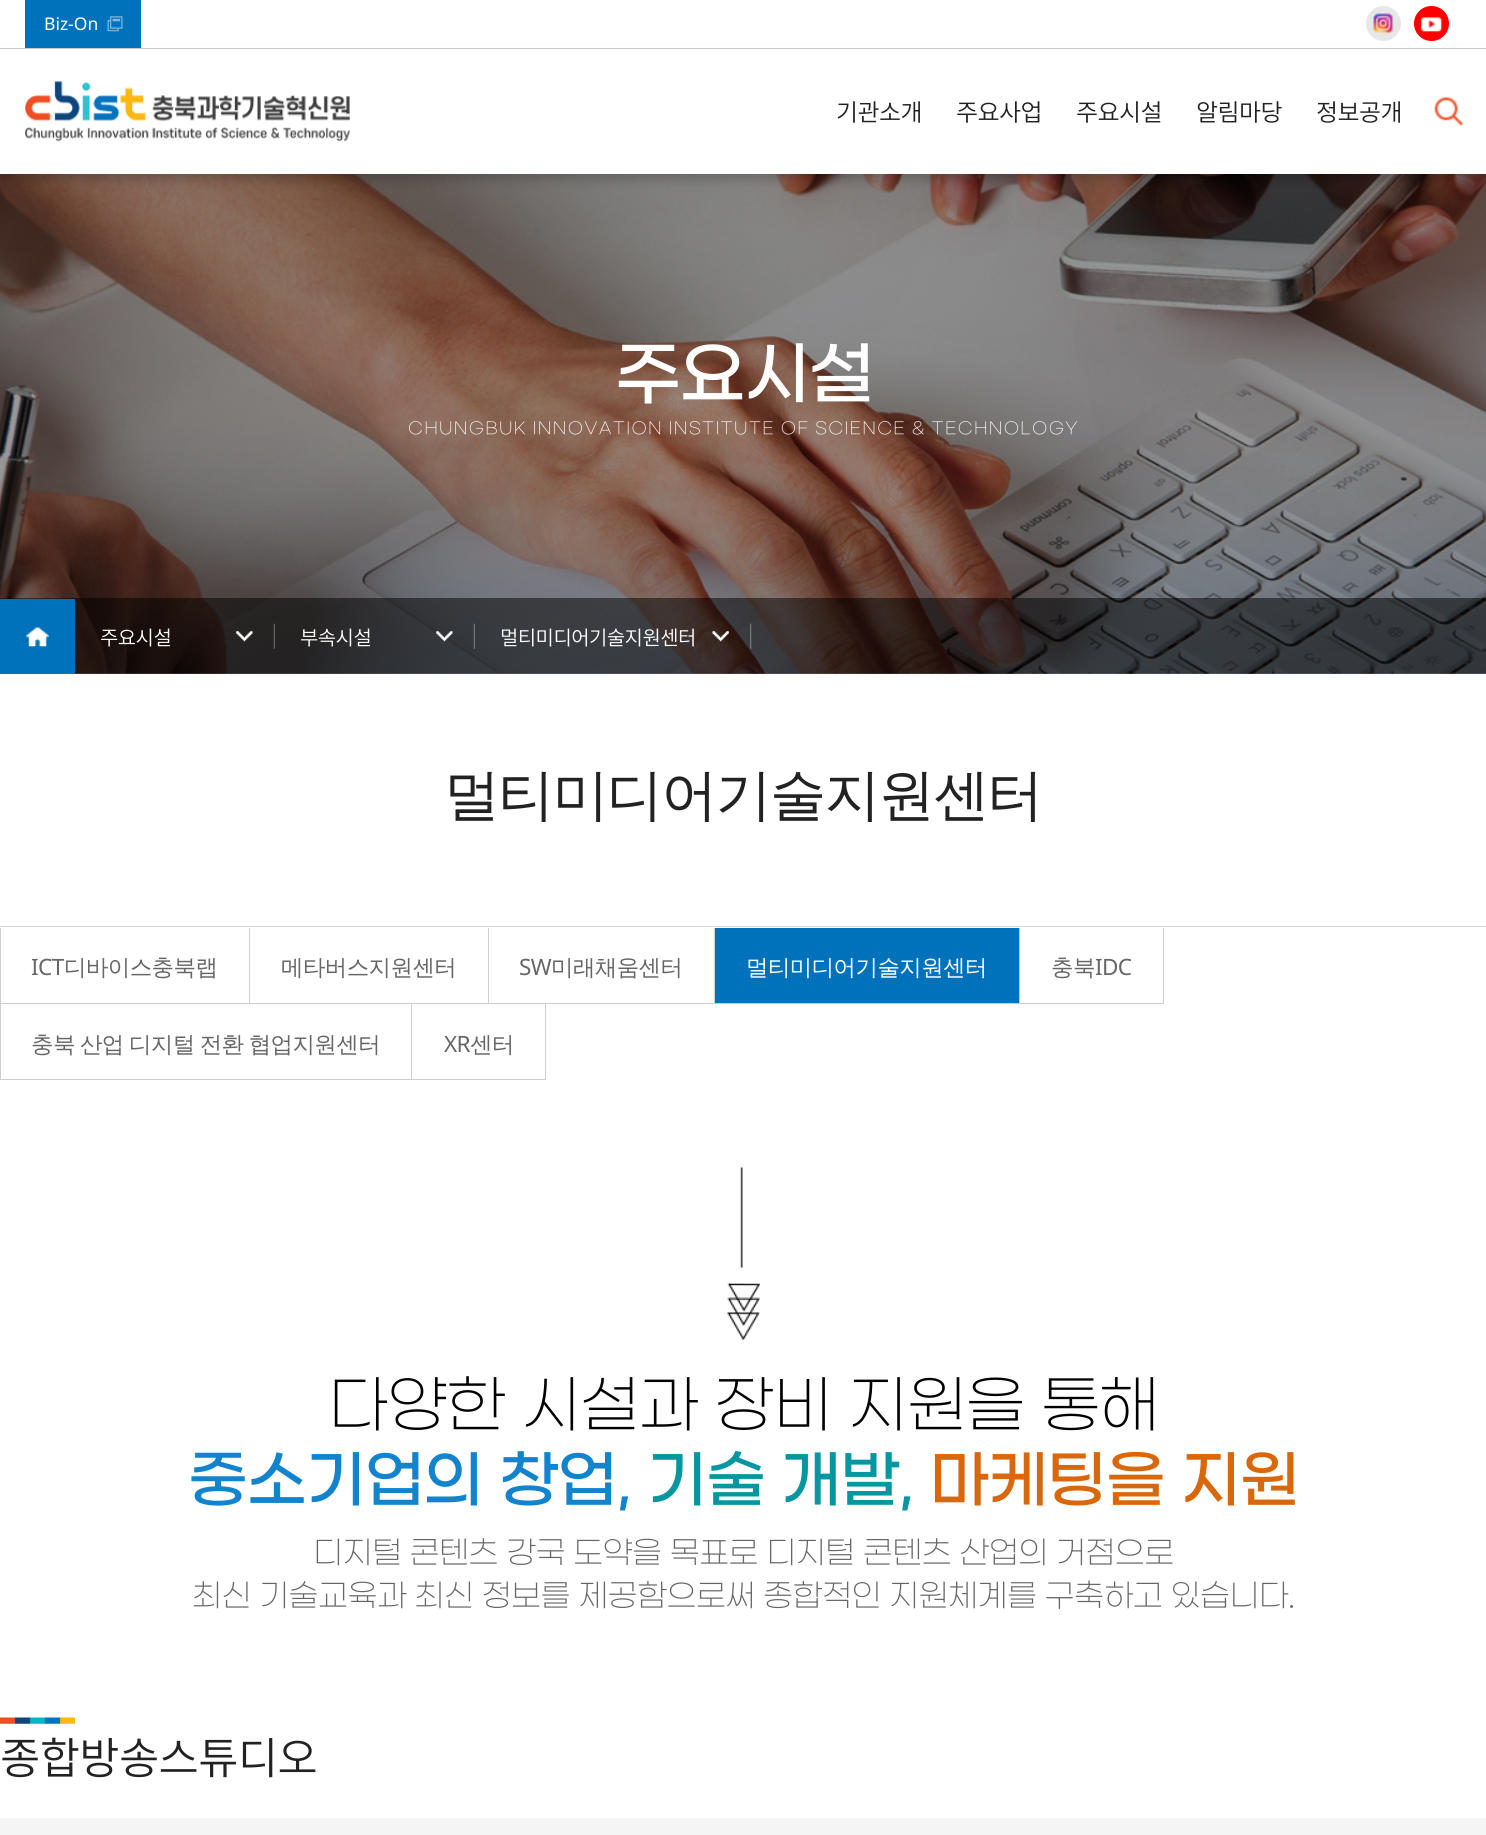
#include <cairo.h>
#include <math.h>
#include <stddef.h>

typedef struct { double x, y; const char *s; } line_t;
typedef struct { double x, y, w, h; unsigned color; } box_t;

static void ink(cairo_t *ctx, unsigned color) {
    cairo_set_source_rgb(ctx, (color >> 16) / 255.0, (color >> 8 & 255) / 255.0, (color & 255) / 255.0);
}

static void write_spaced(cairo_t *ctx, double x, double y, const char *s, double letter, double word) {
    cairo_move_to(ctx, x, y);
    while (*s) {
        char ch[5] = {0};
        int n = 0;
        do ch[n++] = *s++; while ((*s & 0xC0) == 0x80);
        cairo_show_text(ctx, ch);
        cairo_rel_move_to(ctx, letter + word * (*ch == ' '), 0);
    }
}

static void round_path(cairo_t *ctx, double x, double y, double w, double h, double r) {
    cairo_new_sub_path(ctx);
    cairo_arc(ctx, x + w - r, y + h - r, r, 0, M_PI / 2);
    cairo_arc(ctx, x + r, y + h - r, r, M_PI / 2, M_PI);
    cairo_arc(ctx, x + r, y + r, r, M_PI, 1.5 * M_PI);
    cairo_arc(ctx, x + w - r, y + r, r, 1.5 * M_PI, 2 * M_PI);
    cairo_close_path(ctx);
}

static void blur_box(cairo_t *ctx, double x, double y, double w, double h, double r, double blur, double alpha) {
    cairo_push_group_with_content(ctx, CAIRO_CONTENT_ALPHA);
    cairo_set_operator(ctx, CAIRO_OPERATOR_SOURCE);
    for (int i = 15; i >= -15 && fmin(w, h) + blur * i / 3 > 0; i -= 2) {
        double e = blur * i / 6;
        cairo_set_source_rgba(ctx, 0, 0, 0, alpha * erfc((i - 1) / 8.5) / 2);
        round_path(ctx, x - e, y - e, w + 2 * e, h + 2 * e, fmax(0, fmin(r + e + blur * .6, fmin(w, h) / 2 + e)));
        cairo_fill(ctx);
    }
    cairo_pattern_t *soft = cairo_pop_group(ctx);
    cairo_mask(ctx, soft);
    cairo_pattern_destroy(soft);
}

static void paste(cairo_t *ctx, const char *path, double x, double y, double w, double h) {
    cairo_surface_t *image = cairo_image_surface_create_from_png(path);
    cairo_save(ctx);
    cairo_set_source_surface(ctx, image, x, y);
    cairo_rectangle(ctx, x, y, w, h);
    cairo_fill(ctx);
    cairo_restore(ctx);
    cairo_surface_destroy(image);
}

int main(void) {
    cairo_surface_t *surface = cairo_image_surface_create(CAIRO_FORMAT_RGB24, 1486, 1835);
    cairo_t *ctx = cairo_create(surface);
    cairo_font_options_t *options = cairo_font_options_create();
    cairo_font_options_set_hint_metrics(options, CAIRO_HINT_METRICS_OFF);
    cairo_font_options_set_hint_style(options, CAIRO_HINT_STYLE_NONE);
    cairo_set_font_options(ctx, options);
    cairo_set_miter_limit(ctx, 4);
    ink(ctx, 0xFFFFFF);
    cairo_paint(ctx);
    paste(ctx, "media/6.png", 0, 174, 1486, 500);
    ink(ctx, 0x000000);
    blur_box(ctx, 0, 55, 1486, 125, 0, 6, 0.2);
    {
        static const box_t items[] = {
            {0, 45, 1486, 3, 0xFFFFFF},
            {0, 48, 1486, 1, 0xCCCCCC},
            {25, 0, 116, 48, 0x0072BC},
        };
        for (size_t i = 0; i < sizeof items / sizeof *items; i++) {
            ink(ctx, items[i].color);
            cairo_rectangle(ctx, items[i].x, items[i].y, items[i].w, items[i].h);
            cairo_fill(ctx);
        }
    }
    paste(ctx, "media/1.png", 107, 16, 16, 16);
    cairo_select_font_face(ctx, "Noto Sans", CAIRO_FONT_SLANT_NORMAL, CAIRO_FONT_WEIGHT_NORMAL);
    cairo_set_font_size(ctx, 17.5);
    ink(ctx, 0xFFFFFF);
    cairo_move_to(ctx, 44, 30);
    cairo_show_text(ctx, "Biz-On");
    ink(ctx, 0xE7E7E7);
    cairo_new_path(ctx);
    cairo_arc(ctx, 1383.5, 23.5, 17.5, 0, 2 * M_PI);
    cairo_fill(ctx);
    paste(ctx, "media/2.png", 1373, 13, 21, 21);
    ink(ctx, 0xFD0000);
    cairo_arc(ctx, 1431.5, 23.5, 17.5, 0, 2 * M_PI);
    cairo_fill(ctx);
    paste(ctx, "media/3.png", 1420, 17, 23, 16);
    ink(ctx, 0xFFFFFF);
    cairo_rectangle(ctx, 0, 49, 1486, 125);
    cairo_fill(ctx);
    paste(ctx, "media/4.png", 25, 81, 325, 61);
    cairo_select_font_face(ctx, "Noto Sans KR Light", CAIRO_FONT_SLANT_NORMAL, CAIRO_FONT_WEIGHT_NORMAL);
    cairo_set_font_size(ctx, 24);
    ink(ctx, 0x222222);
    {
        static const line_t items[] = {
            {836, 121, "기관소개"},
            {956, 121, "주요사업"},
            {1076, 121, "주요시설"},
            {1196, 121, "알림마당"},
        };
        for (size_t i = 0; i < sizeof items / sizeof *items; i++) {
            write_spaced(ctx, items[i].x, items[i].y, items[i].s, -0.6, 0);
        }
    }
    ink(ctx, 0xFFFFFF);
    cairo_new_path(ctx);
    cairo_move_to(ctx, 1249, 117.5);
    cairo_line_to(ctx, 1252, 120);
    cairo_line_to(ctx, 1238.5, 133.5);
    cairo_line_to(ctx, 1236, 131);
    cairo_close_path(ctx);
    cairo_fill(ctx);
    ink(ctx, 0x222222);
    write_spaced(ctx, 1316, 121, "정보공개", -0.6, 0);
    paste(ctx, "media/5.png", 1434, 96, 30, 30);
    cairo_select_font_face(ctx, "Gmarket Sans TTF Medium", CAIRO_FONT_SLANT_NORMAL, CAIRO_FONT_WEIGHT_NORMAL);
    cairo_set_font_size(ctx, 69);
    ink(ctx, 0xFFFFFF);
    write_spaced(ctx, 615, 395, "주요시설", -1.9, 0);
    cairo_select_font_face(ctx, "Gmarket Sans TTF Light", CAIRO_FONT_SLANT_NORMAL, CAIRO_FONT_WEIGHT_NORMAL);
    cairo_set_font_size(ctx, 16.25);
    write_spaced(ctx, 408, 433, "CHUNGBUK INNOVATION INSTITUTE OF SCIENCE & TECHNOLOGY", 1.25, 0);
    cairo_set_source_rgba(ctx, 0, 0, 0, 0.5);
    cairo_rectangle(ctx, 0, 598, 1486, 76);
    cairo_fill(ctx);
    ink(ctx, 0x0072BC);
    cairo_rectangle(ctx, 0, 599, 75, 75);
    cairo_fill(ctx);
    paste(ctx, "media/7.png", 26, 627, 23, 20);
    paste(ctx, "media/8.png", 273, 623, 2, 26);
    cairo_select_font_face(ctx, "Noto Sans KR Light", CAIRO_FONT_SLANT_NORMAL, CAIRO_FONT_WEIGHT_NORMAL);
    cairo_set_font_size(ctx, 20);
    ink(ctx, 0xFFFFFF);
    write_spaced(ctx, 100, 645, "주요시설", -0.6, 0);
    paste(ctx, "media/9.png", 236, 631, 17, 11);
    paste(ctx, "media/10.png", 473, 623, 2, 26);
    write_spaced(ctx, 300, 645, "부속시설", -0.6, 0);
    paste(ctx, "media/11.png", 436, 631, 17, 11);
    paste(ctx, "media/12.png", 750, 623, 2, 26);
    write_spaced(ctx, 500, 645, "멀티미디어기술지원센터", -0.6, 0);
    paste(ctx, "media/13.png", 712, 631, 17, 11);
    ink(ctx, 0xD6D6D6);
    cairo_rectangle(ctx, 0, 926, 1486, 1);
    cairo_fill(ctx);
    cairo_select_font_face(ctx, "WenQuanYi Zen Hei Medium", CAIRO_FONT_SLANT_NORMAL, CAIRO_FONT_WEIGHT_NORMAL);
    cairo_set_font_size(ctx, 56.25);
    ink(ctx, 0x222222);
    write_spaced(ctx, 444, 814, "멀티미디어기술지원센터", -1.9, 0);
    {
        static const box_t items[] = {
            {249, 928, 1, 76, 0xCFCFCF},
            {0, 1003, 250, 1, 0xCFCFCF},
            {411, 1004, 1, 76, 0xCFCFCF},
            {0, 1079, 413, 1, 0xCFCFCF},
            {0, 928, 1, 152, 0xCFCFCF},
        };
        for (size_t i = 0; i < sizeof items / sizeof *items; i++) {
            ink(ctx, items[i].color);
            cairo_rectangle(ctx, items[i].x, items[i].y, items[i].w, items[i].h);
            cairo_fill(ctx);
        }
    }
    cairo_select_font_face(ctx, "Noto Sans", CAIRO_FONT_SLANT_NORMAL, CAIRO_FONT_WEIGHT_NORMAL);
    cairo_set_font_size(ctx, 22.5);
    ink(ctx, 0x666666);
    write_spaced(ctx, 31, 975, "ICT", -0.6, 0);
    cairo_select_font_face(ctx, "WenQuanYi Zen Hei Medium", CAIRO_FONT_SLANT_NORMAL, CAIRO_FONT_WEIGHT_NORMAL);
    write_spaced(ctx, 64, 975, "디바이스충북랩", -0.6, 0);
    ink(ctx, 0xCFCFCF);
    cairo_rectangle(ctx, 488, 928, 1, 76);
    cairo_fill(ctx);
    cairo_rectangle(ctx, 250, 1003, 239, 1);
    cairo_fill(ctx);
    ink(ctx, 0x666666);
    write_spaced(ctx, 281, 975, "메타버스지원센터", -0.6, 0);
    ink(ctx, 0xCFCFCF);
    cairo_rectangle(ctx, 714, 928, 1, 76);
    cairo_fill(ctx);
    cairo_rectangle(ctx, 489, 1003, 226, 1);
    cairo_fill(ctx);
    cairo_select_font_face(ctx, "Noto Sans", CAIRO_FONT_SLANT_NORMAL, CAIRO_FONT_WEIGHT_NORMAL);
    ink(ctx, 0x666666);
    write_spaced(ctx, 519, 975, "SW", -0.6, 0);
    cairo_select_font_face(ctx, "WenQuanYi Zen Hei Medium", CAIRO_FONT_SLANT_NORMAL, CAIRO_FONT_WEIGHT_NORMAL);
    write_spaced(ctx, 551, 975, "미래채움센터", -0.6, 0);
    {
        static const box_t items[] = {
            {715, 928, 304, 75, 0x0072BC},
            {1019, 928, 1, 76, 0xCFCFCF},
            {715, 1003, 305, 1, 0xCFCFCF},
        };
        for (size_t i = 0; i < sizeof items / sizeof *items; i++) {
            ink(ctx, items[i].color);
            cairo_rectangle(ctx, items[i].x, items[i].y, items[i].w, items[i].h);
            cairo_fill(ctx);
        }
    }
    ink(ctx, 0xFFFFFF);
    write_spaced(ctx, 746, 975, "멀티미디어기술지원센터", -0.6, 0);
    ink(ctx, 0xCFCFCF);
    cairo_rectangle(ctx, 1163, 928, 1, 76);
    cairo_fill(ctx);
    cairo_rectangle(ctx, 1020, 1003, 144, 1);
    cairo_fill(ctx);
    ink(ctx, 0x666666);
    write_spaced(ctx, 1051, 975, "충북", -0.6, 0);
    cairo_select_font_face(ctx, "Noto Sans", CAIRO_FONT_SLANT_NORMAL, CAIRO_FONT_WEIGHT_NORMAL);
    write_spaced(ctx, 1095, 975, "IDC", -0.6, 0);
    cairo_select_font_face(ctx, "WenQuanYi Zen Hei Medium", CAIRO_FONT_SLANT_NORMAL, CAIRO_FONT_WEIGHT_NORMAL);
    write_spaced(ctx, 31, 1052, "충북 산업 디지털 전환 협업지원센터", -0.6, -1);
    ink(ctx, 0xCFCFCF);
    cairo_rectangle(ctx, 545, 1004, 1, 76);
    cairo_fill(ctx);
    cairo_rectangle(ctx, 413, 1079, 133, 1);
    cairo_fill(ctx);
    cairo_select_font_face(ctx, "Noto Sans", CAIRO_FONT_SLANT_NORMAL, CAIRO_FONT_WEIGHT_NORMAL);
    ink(ctx, 0x666666);
    write_spaced(ctx, 444, 1052, "XR", -0.6, 0);
    cairo_select_font_face(ctx, "WenQuanYi Zen Hei Medium", CAIRO_FONT_SLANT_NORMAL, CAIRO_FONT_WEIGHT_NORMAL);
    write_spaced(ctx, 470, 1052, "센터", -0.6, 0);
    paste(ctx, "media/14.png", 727, 1167, 33, 173);
    cairo_select_font_face(ctx, "Gmarket Sans TTF Light", CAIRO_FONT_SLANT_NORMAL, CAIRO_FONT_WEIGHT_NORMAL);
    cairo_set_font_size(ctx, 62.5);
    ink(ctx, 0x000000);
    write_spaced(ctx, 328, 1424, "다양한 시설과 장비 지원을 통해", -1.25, 0);
    cairo_select_font_face(ctx, "Gmarket Sans TTF Medium", CAIRO_FONT_SLANT_NORMAL, CAIRO_FONT_WEIGHT_NORMAL);
    ink(ctx, 0x1284CE);
    write_spaced(ctx, 188, 1499, "중소기업의 창업,", -1.25, 0);
    ink(ctx, 0x0497A2);
    write_spaced(ctx, 647, 1499, "기술 개발,", -1.25, 0);
    ink(ctx, 0xD9670B);
    write_spaced(ctx, 929, 1499, "마케팅을 지원", -1.25, 0);
    cairo_select_font_face(ctx, "Gmarket Sans TTF Light", CAIRO_FONT_SLANT_NORMAL, CAIRO_FONT_WEIGHT_NORMAL);
    cairo_set_font_size(ctx, 31.25);
    ink(ctx, 0x666666);
    write_spaced(ctx, 313, 1562, "디지털 콘텐츠 강국 도약을 목표로 디지털 콘텐츠 산업의 거점으로", -0.6, 0);
    write_spaced(ctx, 192, 1605, "최신 기술교육과 최신 정보를 제공함으로써 종합적인 지원체계를 구축하고 있습니다.", -0.6, 0);
    paste(ctx, "media/15.png", 0, 1717, 75, 7);
    cairo_select_font_face(ctx, "Noto Sans KR Light", CAIRO_FONT_SLANT_NORMAL, CAIRO_FONT_WEIGHT_NORMAL);
    cairo_set_font_size(ctx, 43.75);
    ink(ctx, 0x222222);
    write_spaced(ctx, 0, 1774, "종합방송스튜디오", -0.6, 0);
    ink(ctx, 0xF5F5F5);
    cairo_rectangle(ctx, 0, 1818, 1486, 17);
    cairo_fill(ctx);
    cairo_surface_write_to_png(surface, "image.png");
    cairo_font_options_destroy(options);
    cairo_destroy(ctx);
    cairo_surface_destroy(surface);
    return 0;
}
